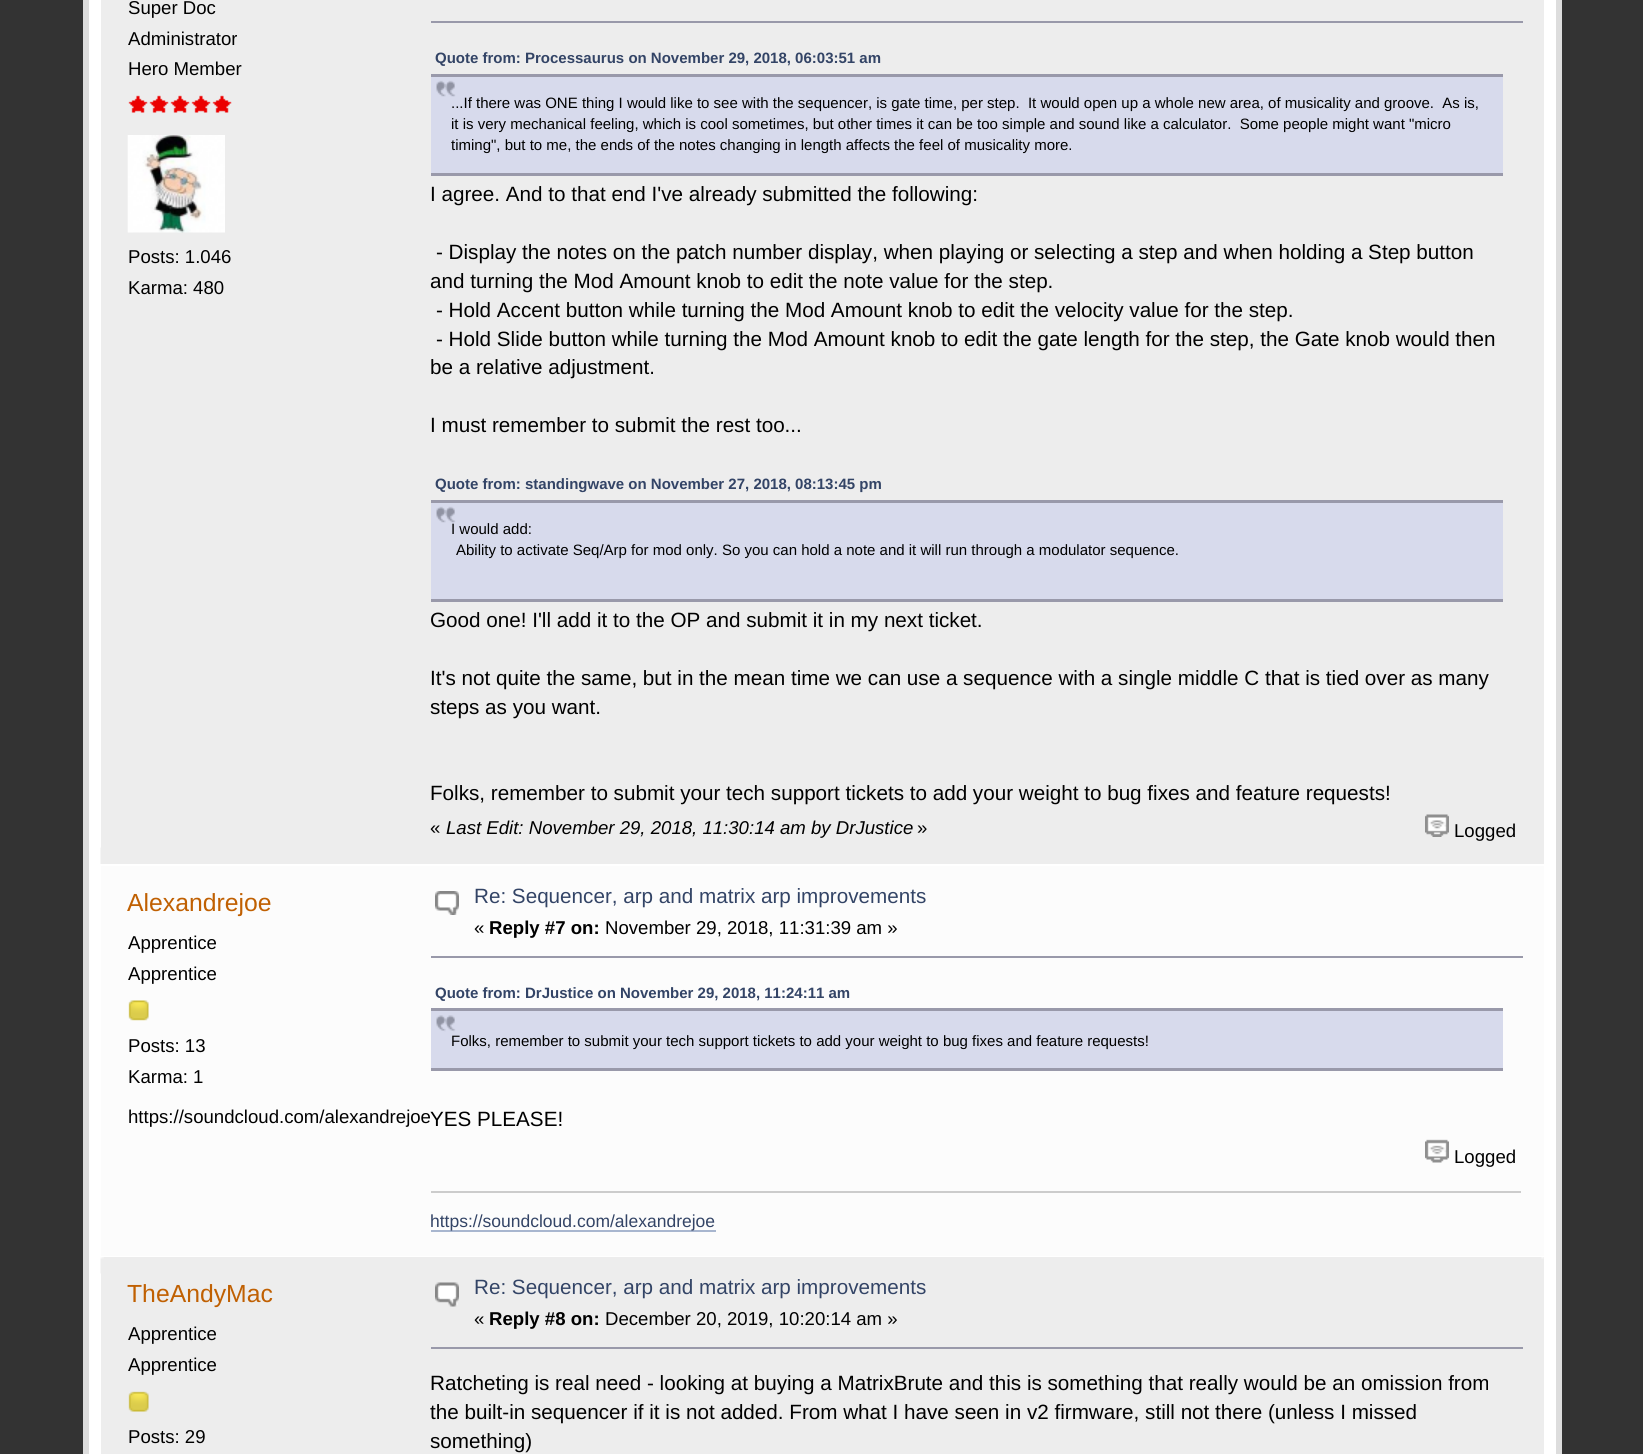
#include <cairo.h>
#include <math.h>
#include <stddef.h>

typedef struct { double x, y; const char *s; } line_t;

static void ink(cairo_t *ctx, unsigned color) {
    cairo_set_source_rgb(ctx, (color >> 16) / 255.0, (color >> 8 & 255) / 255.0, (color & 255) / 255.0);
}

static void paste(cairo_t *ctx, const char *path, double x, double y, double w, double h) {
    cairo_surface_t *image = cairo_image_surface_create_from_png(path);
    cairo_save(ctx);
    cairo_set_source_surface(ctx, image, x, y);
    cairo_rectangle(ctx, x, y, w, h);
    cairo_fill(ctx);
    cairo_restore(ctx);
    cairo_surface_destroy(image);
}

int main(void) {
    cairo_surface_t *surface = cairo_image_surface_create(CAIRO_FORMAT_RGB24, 1643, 1454);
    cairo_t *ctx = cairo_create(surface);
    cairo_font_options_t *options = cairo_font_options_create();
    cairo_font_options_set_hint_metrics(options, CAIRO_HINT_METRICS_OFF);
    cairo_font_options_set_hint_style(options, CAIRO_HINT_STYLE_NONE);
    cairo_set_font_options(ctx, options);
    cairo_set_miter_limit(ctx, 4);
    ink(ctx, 0x333333);
    cairo_paint(ctx);
    ink(ctx, 0xFFFFFF);
    cairo_rectangle(ctx, 86, -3, 1473, 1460);
    cairo_fill_preserve(ctx);
    ink(ctx, 0xDDDDDD);
    cairo_set_line_width(ctx, 6);
    cairo_stroke(ctx);
    ink(ctx, 0xEDEDED);
    cairo_rectangle(ctx, 101, 0, 1443, 864);
    cairo_fill(ctx);
    cairo_select_font_face(ctx, "Liberation Sans", CAIRO_FONT_SLANT_NORMAL, CAIRO_FONT_WEIGHT_NORMAL);
    cairo_set_font_size(ctx, 18.6);
    ink(ctx, 0x000000);
    {
        static const line_t items[] = {
            {128, 14, "Super Doc"},
            {128, 45, "Administrator"},
            {128, 75, "Hero Member"},
        };
        for (size_t i = 0; i < sizeof items / sizeof *items; i++) {
            cairo_move_to(ctx, items[i].x, items[i].y);
            cairo_show_text(ctx, items[i].s);
        }
    }
    paste(ctx, "media/1.png", 128, 95, 20, 18);
    paste(ctx, "media/1.png", 149, 95, 20, 18);
    paste(ctx, "media/1.png", 170, 95, 20, 18);
    paste(ctx, "media/1.png", 191, 95, 20, 18);
    paste(ctx, "media/1.png", 212, 95, 20, 18);
    paste(ctx, "media/2.png", 127, 135, 98, 98);
    cairo_move_to(ctx, 128, 263);
    cairo_show_text(ctx, "Posts: 1.046");
    cairo_move_to(ctx, 128, 294);
    cairo_show_text(ctx, "Karma: 480");
    ink(ctx, 0x9999AA);
    cairo_rectangle(ctx, 431, 21, 1092, 2);
    cairo_fill(ctx);
    cairo_select_font_face(ctx, "Liberation Sans", CAIRO_FONT_SLANT_NORMAL, CAIRO_FONT_WEIGHT_BOLD);
    cairo_set_font_size(ctx, 15);
    ink(ctx, 0x334466);
    cairo_move_to(ctx, 435, 63);
    cairo_show_text(ctx, "Quote from: Processaurus on November 29, 2018, 06:03:51 am");
    ink(ctx, 0xD7DAEC);
    cairo_rectangle(ctx, 431, 77, 1072, 96);
    cairo_fill(ctx);
    paste(ctx, "media/3.png", 436, 80, 20, 17);
    ink(ctx, 0x9999AA);
    cairo_rectangle(ctx, 431, 74, 1072, 3);
    cairo_fill(ctx);
    cairo_rectangle(ctx, 431, 173, 1072, 3);
    cairo_fill(ctx);
    cairo_select_font_face(ctx, "Liberation Sans", CAIRO_FONT_SLANT_NORMAL, CAIRO_FONT_WEIGHT_NORMAL);
    ink(ctx, 0x000000);
    {
        static const line_t items[] = {
            {451, 108, "...If there was ONE thing I would like to see with the sequencer, is gate time, per step.  It would open up a whole new area, of musicality and groove.  As is,"},
            {451, 129, "it is very mechanical feeling, which is cool sometimes, but other times it can be too simple and sound like a calculator.  Some people might want \"micro"},
            {451, 150, "timing\", but to me, the ends of the notes changing in length affects the feel of musicality more."},
        };
        for (size_t i = 0; i < sizeof items / sizeof *items; i++) {
            cairo_move_to(ctx, items[i].x, items[i].y);
            cairo_show_text(ctx, items[i].s);
        }
    }
    cairo_set_font_size(ctx, 20.65);
    {
        static const line_t items[] = {
            {430, 201, "I agree. And to that end I've already submitted the following:"},
            {436, 259, "- Display the notes on the patch number display, when playing or selecting a step and when holding a Step button"},
            {430, 288, "and turning the Mod Amount knob to edit the note value for the step."},
            {436, 317, "- Hold Accent button while turning the Mod Amount knob to edit the velocity value for the step."},
            {436, 346, "- Hold Slide button while turning the Mod Amount knob to edit the gate length for the step, the Gate knob would then"},
            {430, 374, "be a relative adjustment."},
            {430, 432, "I must remember to submit the rest too..."},
        };
        for (size_t i = 0; i < sizeof items / sizeof *items; i++) {
            cairo_move_to(ctx, items[i].x, items[i].y);
            cairo_show_text(ctx, items[i].s);
        }
    }
    cairo_select_font_face(ctx, "Liberation Sans", CAIRO_FONT_SLANT_NORMAL, CAIRO_FONT_WEIGHT_BOLD);
    cairo_set_font_size(ctx, 15);
    ink(ctx, 0x334466);
    cairo_move_to(ctx, 435, 489);
    cairo_show_text(ctx, "Quote from: standingwave on November 27, 2018, 08:13:45 pm");
    ink(ctx, 0xD7DAEC);
    cairo_rectangle(ctx, 431, 503, 1072, 96);
    cairo_fill(ctx);
    paste(ctx, "media/3.png", 436, 506, 20, 17);
    ink(ctx, 0x9999AA);
    cairo_rectangle(ctx, 431, 500, 1072, 3);
    cairo_fill(ctx);
    cairo_rectangle(ctx, 431, 599, 1072, 3);
    cairo_fill(ctx);
    cairo_select_font_face(ctx, "Liberation Sans", CAIRO_FONT_SLANT_NORMAL, CAIRO_FONT_WEIGHT_NORMAL);
    ink(ctx, 0x000000);
    cairo_move_to(ctx, 451, 534);
    cairo_show_text(ctx, "I would add:");
    cairo_move_to(ctx, 456, 555);
    cairo_show_text(ctx, "Ability to activate Seq/Arp for mod only. So you can hold a note and it will run through a modulator sequence.");
    cairo_set_font_size(ctx, 20.65);
    {
        static const line_t items[] = {
            {430, 627, "Good one! I'll add it to the OP and submit it in my next ticket."},
            {430, 685, "It's not quite the same, but in the mean time we can use a sequence with a single middle C that is tied over as many"},
            {430, 714, "steps as you want."},
            {430, 800, "Folks, remember to submit your tech support tickets to add your weight to bug fixes and feature requests!"},
        };
        for (size_t i = 0; i < sizeof items / sizeof *items; i++) {
            cairo_move_to(ctx, items[i].x, items[i].y);
            cairo_show_text(ctx, items[i].s);
        }
    }
    cairo_set_font_size(ctx, 18.6);
    cairo_move_to(ctx, 430, 834);
    cairo_show_text(ctx, "«");
    cairo_select_font_face(ctx, "Liberation Sans", CAIRO_FONT_SLANT_ITALIC, CAIRO_FONT_WEIGHT_NORMAL);
    cairo_move_to(ctx, 446, 834);
    cairo_show_text(ctx, "Last Edit: November 29, 2018, 11:30:14 am by DrJustice");
    cairo_select_font_face(ctx, "Liberation Sans", CAIRO_FONT_SLANT_NORMAL, CAIRO_FONT_WEIGHT_NORMAL);
    cairo_move_to(ctx, 917, 834);
    cairo_show_text(ctx, "»");
    paste(ctx, "media/4.png", 1425, 814, 24, 23);
    cairo_move_to(ctx, 1454, 837);
    cairo_show_text(ctx, "Logged");
    paste(ctx, "media/5.png", 100, 847, 1, 17);
    ink(ctx, 0xFCFCFC);
    cairo_rectangle(ctx, 101, 866, 1443, 390);
    cairo_fill(ctx);
    cairo_set_font_size(ctx, 24.75);
    ink(ctx, 0xC06002);
    cairo_move_to(ctx, 127, 911);
    cairo_show_text(ctx, "Alexandrejoe");
    cairo_set_font_size(ctx, 18.6);
    ink(ctx, 0x000000);
    cairo_move_to(ctx, 128, 949);
    cairo_show_text(ctx, "Apprentice");
    cairo_move_to(ctx, 128, 980);
    cairo_show_text(ctx, "Apprentice");
    paste(ctx, "media/6.png", 128, 1000, 21, 21);
    {
        static const line_t items[] = {
            {128, 1052, "Posts: 13"},
            {128, 1083, "Karma: 1"},
            {128, 1123, "https://soundcloud.com/alexandrejoe"},
        };
        for (size_t i = 0; i < sizeof items / sizeof *items; i++) {
            cairo_move_to(ctx, items[i].x, items[i].y);
            cairo_show_text(ctx, items[i].s);
        }
    }
    paste(ctx, "media/7.png", 435, 891, 24, 24);
    cairo_set_font_size(ctx, 20.65);
    ink(ctx, 0x334466);
    cairo_move_to(ctx, 474, 903);
    cairo_show_text(ctx, "Re: Sequencer, arp and matrix arp improvements");
    cairo_set_font_size(ctx, 18.6);
    ink(ctx, 0x000000);
    cairo_move_to(ctx, 474, 934);
    cairo_show_text(ctx, "«");
    cairo_select_font_face(ctx, "Liberation Sans", CAIRO_FONT_SLANT_NORMAL, CAIRO_FONT_WEIGHT_BOLD);
    cairo_move_to(ctx, 489, 934);
    cairo_show_text(ctx, "Reply #7 on:");
    cairo_select_font_face(ctx, "Liberation Sans", CAIRO_FONT_SLANT_NORMAL, CAIRO_FONT_WEIGHT_NORMAL);
    cairo_move_to(ctx, 605, 934);
    cairo_show_text(ctx, "November 29, 2018, 11:31:39 am »");
    ink(ctx, 0x9999AA);
    cairo_rectangle(ctx, 431, 956, 1092, 2);
    cairo_fill(ctx);
    cairo_select_font_face(ctx, "Liberation Sans", CAIRO_FONT_SLANT_NORMAL, CAIRO_FONT_WEIGHT_BOLD);
    cairo_set_font_size(ctx, 15);
    ink(ctx, 0x334466);
    cairo_move_to(ctx, 435, 998);
    cairo_show_text(ctx, "Quote from: DrJustice on November 29, 2018, 11:24:11 am");
    ink(ctx, 0xD7DAEC);
    cairo_rectangle(ctx, 431, 1011, 1072, 57);
    cairo_fill(ctx);
    paste(ctx, "media/8.png", 436, 1015, 20, 17);
    ink(ctx, 0x9999AA);
    cairo_rectangle(ctx, 431, 1008, 1072, 3);
    cairo_fill(ctx);
    cairo_rectangle(ctx, 431, 1068, 1072, 3);
    cairo_fill(ctx);
    cairo_select_font_face(ctx, "Liberation Sans", CAIRO_FONT_SLANT_NORMAL, CAIRO_FONT_WEIGHT_NORMAL);
    ink(ctx, 0x000000);
    cairo_move_to(ctx, 451, 1046);
    cairo_show_text(ctx, "Folks, remember to submit your tech support tickets to add your weight to bug fixes and feature requests!");
    cairo_set_font_size(ctx, 20.65);
    cairo_move_to(ctx, 430, 1126);
    cairo_show_text(ctx, "YES PLEASE!");
    paste(ctx, "media/9.png", 1425, 1139, 24, 24);
    cairo_set_font_size(ctx, 18.6);
    cairo_move_to(ctx, 1454, 1163);
    cairo_show_text(ctx, "Logged");
    ink(ctx, 0xCCCCCC);
    cairo_rectangle(ctx, 431, 1191, 1090, 2);
    cairo_fill(ctx);
    ink(ctx, 0xA8B6CF);
    cairo_rectangle(ctx, 431, 1230, 285, 2);
    cairo_fill(ctx);
    cairo_set_font_size(ctx, 17.5);
    ink(ctx, 0x334466);
    cairo_move_to(ctx, 430, 1227);
    cairo_show_text(ctx, "https://soundcloud.com/alexandrejoe");
    ink(ctx, 0xEDEDED);
    cairo_rectangle(ctx, 101, 1257, 1443, 197);
    cairo_fill(ctx);
    paste(ctx, "media/10.png", 100, 1257, 4, 17);
    paste(ctx, "media/11.png", 1541, 1257, 3, 2);
    cairo_set_font_size(ctx, 24.75);
    ink(ctx, 0xC06002);
    cairo_move_to(ctx, 127, 1302);
    cairo_show_text(ctx, "TheAndyMac");
    cairo_set_font_size(ctx, 18.6);
    ink(ctx, 0x000000);
    cairo_move_to(ctx, 128, 1340);
    cairo_show_text(ctx, "Apprentice");
    cairo_move_to(ctx, 128, 1371);
    cairo_show_text(ctx, "Apprentice");
    paste(ctx, "media/12.png", 128, 1391, 21, 21);
    cairo_move_to(ctx, 128, 1443);
    cairo_show_text(ctx, "Posts: 29");
    paste(ctx, "media/13.png", 435, 1282, 24, 25);
    cairo_set_font_size(ctx, 20.65);
    ink(ctx, 0x334466);
    cairo_move_to(ctx, 474, 1294);
    cairo_show_text(ctx, "Re: Sequencer, arp and matrix arp improvements");
    cairo_set_font_size(ctx, 18.6);
    ink(ctx, 0x000000);
    cairo_move_to(ctx, 474, 1325);
    cairo_show_text(ctx, "«");
    cairo_select_font_face(ctx, "Liberation Sans", CAIRO_FONT_SLANT_NORMAL, CAIRO_FONT_WEIGHT_BOLD);
    cairo_move_to(ctx, 489, 1325);
    cairo_show_text(ctx, "Reply #8 on:");
    cairo_select_font_face(ctx, "Liberation Sans", CAIRO_FONT_SLANT_NORMAL, CAIRO_FONT_WEIGHT_NORMAL);
    cairo_move_to(ctx, 605, 1325);
    cairo_show_text(ctx, "December 20, 2019, 10:20:14 am »");
    ink(ctx, 0x9999AA);
    cairo_rectangle(ctx, 431, 1347, 1092, 2);
    cairo_fill(ctx);
    cairo_set_font_size(ctx, 20.65);
    ink(ctx, 0x000000);
    {
        static const line_t items[] = {
            {430, 1390, "Ratcheting is real need - looking at buying a MatrixBrute and this is something that really would be an omission from"},
            {430, 1419, "the built-in sequencer if it is not added. From what I have seen in v2 firmware, still not there (unless I missed"},
            {430, 1448, "something)"},
        };
        for (size_t i = 0; i < sizeof items / sizeof *items; i++) {
            cairo_move_to(ctx, items[i].x, items[i].y);
            cairo_show_text(ctx, items[i].s);
        }
    }
    cairo_surface_write_to_png(surface, "image.png");
    cairo_font_options_destroy(options);
    cairo_destroy(ctx);
    cairo_surface_destroy(surface);
    return 0;
}
